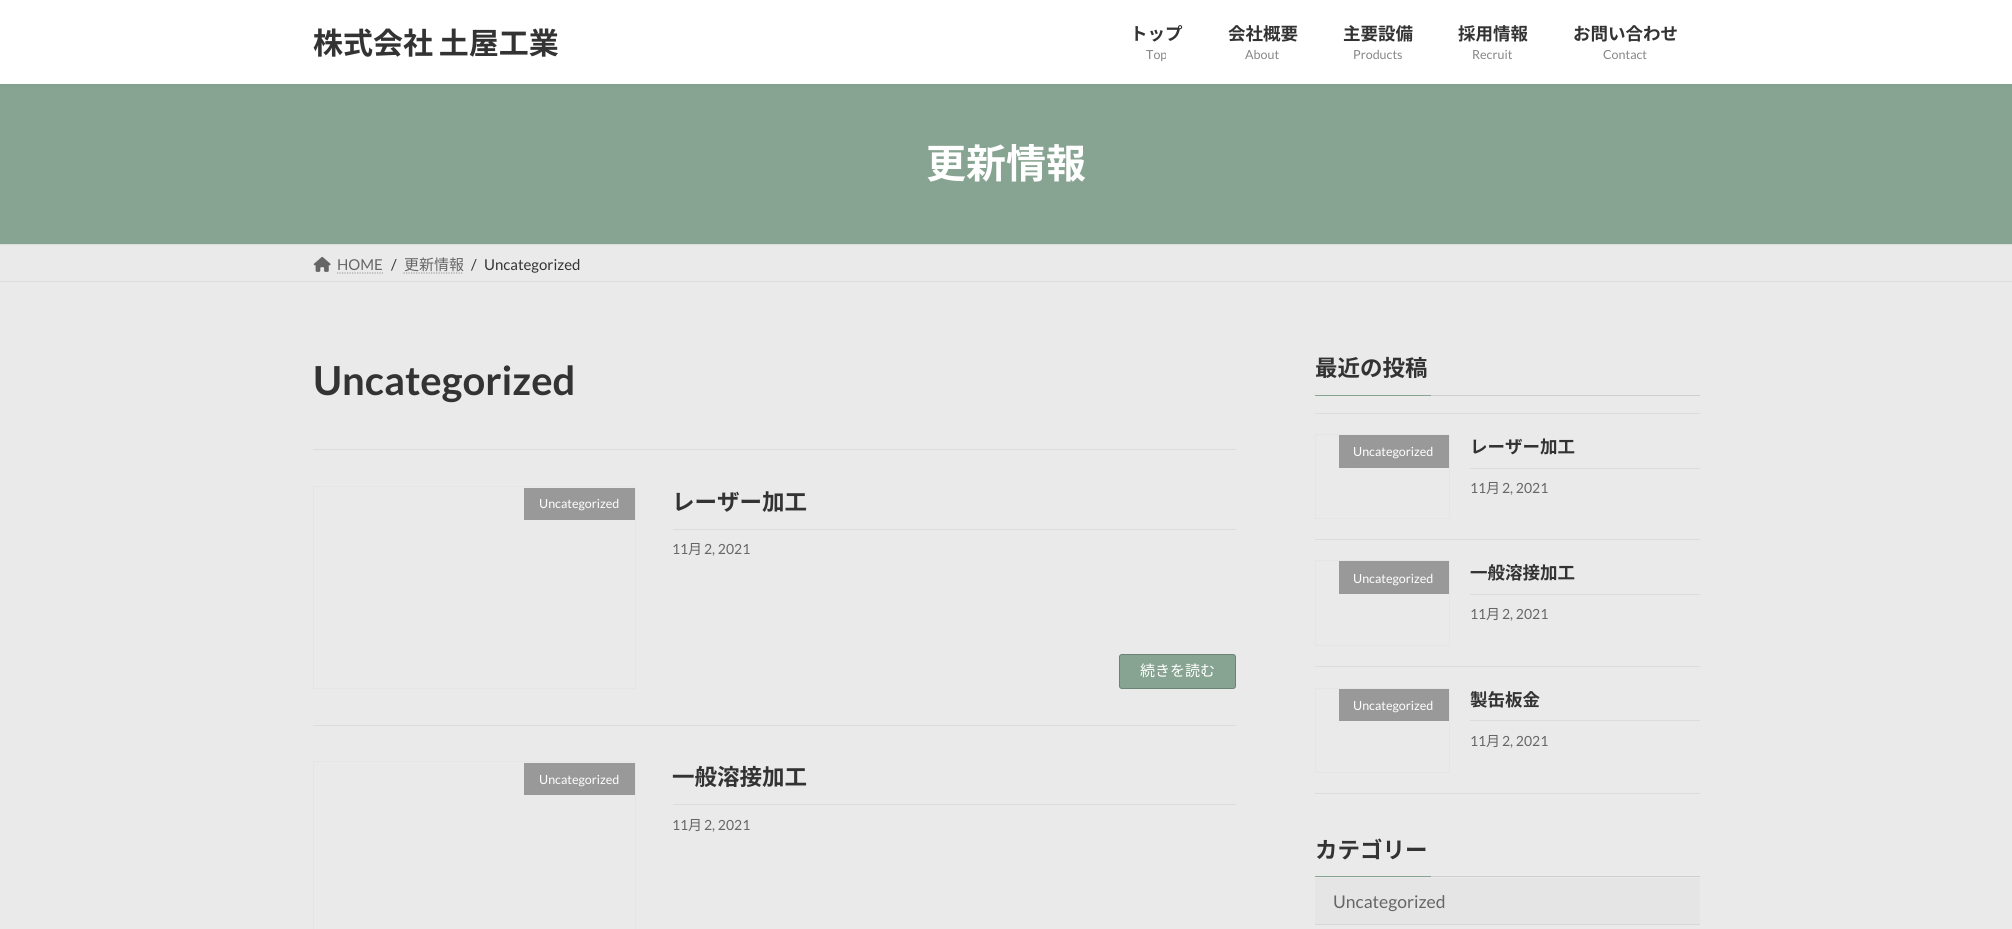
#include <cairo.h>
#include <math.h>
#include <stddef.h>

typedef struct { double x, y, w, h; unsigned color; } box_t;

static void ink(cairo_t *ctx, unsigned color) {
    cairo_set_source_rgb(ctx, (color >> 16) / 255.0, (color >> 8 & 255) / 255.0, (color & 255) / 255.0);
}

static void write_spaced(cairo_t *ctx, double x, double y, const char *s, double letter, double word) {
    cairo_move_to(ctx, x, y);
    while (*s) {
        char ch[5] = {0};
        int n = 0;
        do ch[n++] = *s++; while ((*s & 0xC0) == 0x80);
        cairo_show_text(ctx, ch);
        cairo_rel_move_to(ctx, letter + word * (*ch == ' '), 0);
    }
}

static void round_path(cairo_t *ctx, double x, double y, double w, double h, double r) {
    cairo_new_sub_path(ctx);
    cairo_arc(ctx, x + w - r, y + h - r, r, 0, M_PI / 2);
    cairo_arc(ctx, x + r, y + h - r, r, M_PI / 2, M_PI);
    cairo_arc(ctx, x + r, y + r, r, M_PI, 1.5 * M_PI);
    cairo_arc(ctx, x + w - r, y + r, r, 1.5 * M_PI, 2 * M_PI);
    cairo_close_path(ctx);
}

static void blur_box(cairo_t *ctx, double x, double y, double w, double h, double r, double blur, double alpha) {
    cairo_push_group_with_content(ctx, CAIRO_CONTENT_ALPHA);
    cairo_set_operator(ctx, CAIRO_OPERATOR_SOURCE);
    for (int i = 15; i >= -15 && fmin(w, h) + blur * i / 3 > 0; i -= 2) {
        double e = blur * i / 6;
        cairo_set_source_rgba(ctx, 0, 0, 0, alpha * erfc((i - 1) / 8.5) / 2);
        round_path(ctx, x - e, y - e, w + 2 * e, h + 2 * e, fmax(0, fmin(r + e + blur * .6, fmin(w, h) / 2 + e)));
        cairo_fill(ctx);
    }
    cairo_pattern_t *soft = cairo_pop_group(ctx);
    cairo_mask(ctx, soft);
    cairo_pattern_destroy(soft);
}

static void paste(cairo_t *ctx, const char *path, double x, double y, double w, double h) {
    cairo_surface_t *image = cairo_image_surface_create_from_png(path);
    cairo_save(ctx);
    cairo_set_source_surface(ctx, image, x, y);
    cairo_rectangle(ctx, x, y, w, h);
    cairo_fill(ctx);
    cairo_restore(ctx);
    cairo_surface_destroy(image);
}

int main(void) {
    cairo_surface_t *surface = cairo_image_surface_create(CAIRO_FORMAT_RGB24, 2012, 929);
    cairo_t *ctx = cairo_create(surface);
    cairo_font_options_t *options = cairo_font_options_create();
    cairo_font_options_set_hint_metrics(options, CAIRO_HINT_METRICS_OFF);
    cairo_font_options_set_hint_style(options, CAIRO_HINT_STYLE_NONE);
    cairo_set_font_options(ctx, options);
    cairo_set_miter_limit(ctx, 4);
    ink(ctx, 0xEAEAEA);
    cairo_paint(ctx);
    ink(ctx, 0x87A391);
    cairo_rectangle(ctx, 0, 84, 2012, 160);
    cairo_fill(ctx);
    ink(ctx, 0x000000);
    blur_box(ctx, 0, 1, 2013, 84, 0, 2, 0.05);
    ink(ctx, 0xFFFFFF);
    cairo_rectangle(ctx, 0, 0, 2012, 84);
    cairo_fill(ctx);
    cairo_select_font_face(ctx, "Noto Sans JP", CAIRO_FONT_SLANT_NORMAL, CAIRO_FONT_WEIGHT_BOLD);
    cairo_set_font_size(ctx, 30);
    ink(ctx, 0x333333);
    write_spaced(ctx, 313, 54, "株式会社 土屋工業", 0, -1);
    cairo_set_font_size(ctx, 17.5);
    cairo_move_to(ctx, 1130, 40);
    cairo_show_text(ctx, "トップ");
    cairo_save(ctx);
    cairo_rectangle(ctx, 1146, 45, 20, 18);
    cairo_clip(ctx);
    cairo_select_font_face(ctx, "Lato", CAIRO_FONT_SLANT_NORMAL, CAIRO_FONT_WEIGHT_NORMAL);
    cairo_set_font_size(ctx, 12.5);
    ink(ctx, 0x858585);
    cairo_move_to(ctx, 1146, 59);
    cairo_show_text(ctx, "Top");
    cairo_restore(ctx);
    cairo_move_to(ctx, 1228, 40);
    cairo_show_text(ctx, "会社概要");
    cairo_select_font_face(ctx, "Lato", CAIRO_FONT_SLANT_NORMAL, CAIRO_FONT_WEIGHT_NORMAL);
    cairo_set_font_size(ctx, 12.5);
    ink(ctx, 0x858585);
    cairo_move_to(ctx, 1245, 59);
    cairo_show_text(ctx, "About");
    cairo_select_font_face(ctx, "Noto Sans JP", CAIRO_FONT_SLANT_NORMAL, CAIRO_FONT_WEIGHT_BOLD);
    cairo_set_font_size(ctx, 17.5);
    ink(ctx, 0x333333);
    cairo_move_to(ctx, 1343, 40);
    cairo_show_text(ctx, "主要設備");
    cairo_select_font_face(ctx, "Lato", CAIRO_FONT_SLANT_NORMAL, CAIRO_FONT_WEIGHT_NORMAL);
    cairo_set_font_size(ctx, 12.5);
    ink(ctx, 0x858585);
    cairo_move_to(ctx, 1353, 59);
    cairo_show_text(ctx, "Products");
    cairo_select_font_face(ctx, "Noto Sans JP", CAIRO_FONT_SLANT_NORMAL, CAIRO_FONT_WEIGHT_BOLD);
    cairo_set_font_size(ctx, 17.5);
    ink(ctx, 0x333333);
    cairo_move_to(ctx, 1458, 40);
    cairo_show_text(ctx, "採用情報");
    cairo_select_font_face(ctx, "Lato", CAIRO_FONT_SLANT_NORMAL, CAIRO_FONT_WEIGHT_NORMAL);
    cairo_set_font_size(ctx, 12.5);
    ink(ctx, 0x858585);
    cairo_move_to(ctx, 1472, 59);
    cairo_show_text(ctx, "Recruit");
    cairo_select_font_face(ctx, "Noto Sans JP", CAIRO_FONT_SLANT_NORMAL, CAIRO_FONT_WEIGHT_BOLD);
    cairo_set_font_size(ctx, 17.5);
    ink(ctx, 0x333333);
    cairo_move_to(ctx, 1573, 40);
    cairo_show_text(ctx, "お問い合わせ");
    cairo_select_font_face(ctx, "Lato", CAIRO_FONT_SLANT_NORMAL, CAIRO_FONT_WEIGHT_NORMAL);
    cairo_set_font_size(ctx, 12.5);
    ink(ctx, 0x858585);
    cairo_move_to(ctx, 1603, 59);
    cairo_show_text(ctx, "Contact");
    cairo_select_font_face(ctx, "Noto Sans JP", CAIRO_FONT_SLANT_NORMAL, CAIRO_FONT_WEIGHT_BOLD);
    cairo_set_font_size(ctx, 40);
    ink(ctx, 0xFFFFFF);
    cairo_move_to(ctx, 926, 178);
    cairo_show_text(ctx, "更新情報");
    ink(ctx, 0xDCDCDC);
    cairo_rectangle(ctx, 0, 244, 2012, 1);
    cairo_fill(ctx);
    cairo_rectangle(ctx, 0, 281, 2012, 1);
    cairo_fill(ctx);
    paste(ctx, "media/1.png", 313, 256, 18, 16);
    cairo_select_font_face(ctx, "Lato", CAIRO_FONT_SLANT_NORMAL, CAIRO_FONT_WEIGHT_NORMAL);
    cairo_set_font_size(ctx, 15);
    ink(ctx, 0x666666);
    cairo_move_to(ctx, 337, 270);
    cairo_show_text(ctx, "HOME");
    cairo_new_path(ctx);
    cairo_move_to(ctx, 337, 273);
    cairo_line_to(ctx, 383, 273);
    ink(ctx, 0xA4A4A4);
    cairo_set_line_width(ctx, 1.2);
    cairo_set_dash(ctx, (double[]){1.25, 1.25}, 2, 0);
    cairo_stroke(ctx);
    ink(ctx, 0x333333);
    cairo_move_to(ctx, 391, 270);
    cairo_show_text(ctx, "/");
    cairo_select_font_face(ctx, "Noto Sans JP", CAIRO_FONT_SLANT_NORMAL, CAIRO_FONT_WEIGHT_NORMAL);
    ink(ctx, 0x666666);
    cairo_move_to(ctx, 404, 270);
    cairo_show_text(ctx, "更新情報");
    cairo_new_path(ctx);
    cairo_move_to(ctx, 403.5, 273);
    cairo_line_to(ctx, 463.5, 273);
    ink(ctx, 0xA4A4A4);
    cairo_stroke(ctx);
    cairo_select_font_face(ctx, "Lato", CAIRO_FONT_SLANT_NORMAL, CAIRO_FONT_WEIGHT_NORMAL);
    ink(ctx, 0x333333);
    cairo_move_to(ctx, 471, 270);
    cairo_show_text(ctx, "/");
    cairo_move_to(ctx, 484, 270);
    cairo_show_text(ctx, "Uncategorized");
    cairo_select_font_face(ctx, "Lato", CAIRO_FONT_SLANT_NORMAL, CAIRO_FONT_WEIGHT_BOLD);
    cairo_set_font_size(ctx, 40);
    cairo_move_to(ctx, 313, 395);
    cairo_show_text(ctx, "Uncategorized");
    ink(ctx, 0xDCDCDC);
    cairo_rectangle(ctx, 313, 449, 923, 1);
    cairo_fill(ctx);
    cairo_rectangle(ctx, 313, 725, 923, 1);
    cairo_fill(ctx);
    cairo_rectangle(ctx, 313.5, 486.5, 322, 202);
    ink(ctx, 0xE5E5E5);
    cairo_set_line_width(ctx, 1);
    cairo_set_dash(ctx, NULL, 0, 0);
    cairo_stroke(ctx);
    ink(ctx, 0x999999);
    cairo_rectangle(ctx, 524, 488, 111, 32);
    cairo_fill(ctx);
    cairo_select_font_face(ctx, "Lato", CAIRO_FONT_SLANT_NORMAL, CAIRO_FONT_WEIGHT_NORMAL);
    cairo_set_font_size(ctx, 12.5);
    ink(ctx, 0xFFFFFF);
    cairo_move_to(ctx, 539, 508);
    cairo_show_text(ctx, "Uncategorized");
    ink(ctx, 0xDCDCDC);
    cairo_rectangle(ctx, 673, 529, 563, 1);
    cairo_fill(ctx);
    cairo_select_font_face(ctx, "Noto Sans JP", CAIRO_FONT_SLANT_NORMAL, CAIRO_FONT_WEIGHT_BOLD);
    cairo_set_font_size(ctx, 22.5);
    ink(ctx, 0x333333);
    cairo_move_to(ctx, 672, 510);
    cairo_show_text(ctx, "レーザー加工");
    cairo_select_font_face(ctx, "Lato", CAIRO_FONT_SLANT_NORMAL, CAIRO_FONT_WEIGHT_NORMAL);
    cairo_set_font_size(ctx, 14);
    ink(ctx, 0x666666);
    cairo_move_to(ctx, 672, 554);
    cairo_show_text(ctx, "11");
    cairo_select_font_face(ctx, "Noto Sans JP", CAIRO_FONT_SLANT_NORMAL, CAIRO_FONT_WEIGHT_NORMAL);
    cairo_move_to(ctx, 688, 554);
    cairo_show_text(ctx, "月");
    cairo_select_font_face(ctx, "Lato", CAIRO_FONT_SLANT_NORMAL, CAIRO_FONT_WEIGHT_NORMAL);
    cairo_move_to(ctx, 704, 554);
    cairo_show_text(ctx, "2, 2021");
    ink(ctx, 0x87A391);
    round_path(ctx, 1119.5, 654.5, 116, 34, 2.5);
    cairo_fill_preserve(ctx);
    ink(ctx, 0x6C8274);
    cairo_stroke(ctx);
    cairo_select_font_face(ctx, "Noto Sans JP", CAIRO_FONT_SLANT_NORMAL, CAIRO_FONT_WEIGHT_NORMAL);
    cairo_set_font_size(ctx, 15);
    ink(ctx, 0xFFFFFF);
    cairo_move_to(ctx, 1140, 676);
    cairo_show_text(ctx, "続きを読む");
    cairo_rectangle(ctx, 313.5, 761.5, 322, 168);
    ink(ctx, 0xE5E5E5);
    cairo_stroke(ctx);
    ink(ctx, 0x999999);
    cairo_rectangle(ctx, 524, 763, 111, 32);
    cairo_fill(ctx);
    cairo_select_font_face(ctx, "Lato", CAIRO_FONT_SLANT_NORMAL, CAIRO_FONT_WEIGHT_NORMAL);
    cairo_set_font_size(ctx, 12.5);
    ink(ctx, 0xFFFFFF);
    cairo_move_to(ctx, 539, 784);
    cairo_show_text(ctx, "Uncategorized");
    ink(ctx, 0xDCDCDC);
    cairo_rectangle(ctx, 673, 804, 563, 1);
    cairo_fill(ctx);
    cairo_select_font_face(ctx, "Noto Sans JP", CAIRO_FONT_SLANT_NORMAL, CAIRO_FONT_WEIGHT_BOLD);
    cairo_set_font_size(ctx, 22.5);
    ink(ctx, 0x333333);
    cairo_move_to(ctx, 672, 785);
    cairo_show_text(ctx, "一般溶接加工");
    cairo_select_font_face(ctx, "Lato", CAIRO_FONT_SLANT_NORMAL, CAIRO_FONT_WEIGHT_NORMAL);
    cairo_set_font_size(ctx, 14);
    ink(ctx, 0x666666);
    cairo_move_to(ctx, 672, 830);
    cairo_show_text(ctx, "11");
    cairo_select_font_face(ctx, "Noto Sans JP", CAIRO_FONT_SLANT_NORMAL, CAIRO_FONT_WEIGHT_NORMAL);
    cairo_move_to(ctx, 688, 830);
    cairo_show_text(ctx, "月");
    cairo_select_font_face(ctx, "Lato", CAIRO_FONT_SLANT_NORMAL, CAIRO_FONT_WEIGHT_NORMAL);
    cairo_move_to(ctx, 704, 830);
    cairo_show_text(ctx, "2, 2021");
    ink(ctx, 0xCECECE);
    cairo_rectangle(ctx, 1431, 395, 269, 1);
    cairo_fill(ctx);
    cairo_select_font_face(ctx, "Noto Sans JP", CAIRO_FONT_SLANT_NORMAL, CAIRO_FONT_WEIGHT_BOLD);
    cairo_set_font_size(ctx, 22.5);
    ink(ctx, 0x333333);
    cairo_move_to(ctx, 1315, 376);
    cairo_show_text(ctx, "最近の投稿");
    {
        static const box_t items[] = {
            {1315, 395, 116, 1, 0x87A391},
            {1315, 413, 385, 1, 0xDCDCDC},
            {1315, 539, 385, 1, 0xDCDCDC},
        };
        for (size_t i = 0; i < sizeof items / sizeof *items; i++) {
            ink(ctx, items[i].color);
            cairo_rectangle(ctx, items[i].x, items[i].y, items[i].w, items[i].h);
            cairo_fill(ctx);
        }
    }
    cairo_rectangle(ctx, 1315.5, 434.5, 134, 84);
    ink(ctx, 0xE5E5E5);
    cairo_stroke(ctx);
    ink(ctx, 0x999999);
    cairo_rectangle(ctx, 1339, 435, 110, 33);
    cairo_fill(ctx);
    cairo_select_font_face(ctx, "Lato", CAIRO_FONT_SLANT_NORMAL, CAIRO_FONT_WEIGHT_NORMAL);
    cairo_set_font_size(ctx, 12.5);
    ink(ctx, 0xFFFFFF);
    cairo_move_to(ctx, 1353, 456);
    cairo_show_text(ctx, "Uncategorized");
    ink(ctx, 0xDCDCDC);
    cairo_rectangle(ctx, 1470, 468, 230, 1);
    cairo_fill(ctx);
    cairo_select_font_face(ctx, "Noto Sans JP", CAIRO_FONT_SLANT_NORMAL, CAIRO_FONT_WEIGHT_BOLD);
    cairo_set_font_size(ctx, 17.5);
    ink(ctx, 0x333333);
    cairo_move_to(ctx, 1470, 453);
    cairo_show_text(ctx, "レーザー加工");
    cairo_select_font_face(ctx, "Lato", CAIRO_FONT_SLANT_NORMAL, CAIRO_FONT_WEIGHT_NORMAL);
    cairo_set_font_size(ctx, 14);
    ink(ctx, 0x666666);
    cairo_move_to(ctx, 1470, 493);
    cairo_show_text(ctx, "11");
    cairo_select_font_face(ctx, "Noto Sans JP", CAIRO_FONT_SLANT_NORMAL, CAIRO_FONT_WEIGHT_NORMAL);
    cairo_move_to(ctx, 1486, 493);
    cairo_show_text(ctx, "月");
    cairo_select_font_face(ctx, "Lato", CAIRO_FONT_SLANT_NORMAL, CAIRO_FONT_WEIGHT_NORMAL);
    cairo_move_to(ctx, 1502, 493);
    cairo_show_text(ctx, "2, 2021");
    ink(ctx, 0xDCDCDC);
    cairo_rectangle(ctx, 1315, 666, 385, 1);
    cairo_fill(ctx);
    cairo_rectangle(ctx, 1315.5, 560.5, 134, 85);
    ink(ctx, 0xE5E5E5);
    cairo_stroke(ctx);
    ink(ctx, 0x999999);
    cairo_rectangle(ctx, 1339, 561, 110, 33);
    cairo_fill(ctx);
    cairo_set_font_size(ctx, 12.5);
    ink(ctx, 0xFFFFFF);
    cairo_move_to(ctx, 1353, 583);
    cairo_show_text(ctx, "Uncategorized");
    ink(ctx, 0xDCDCDC);
    cairo_rectangle(ctx, 1470, 594, 230, 1);
    cairo_fill(ctx);
    cairo_select_font_face(ctx, "Noto Sans JP", CAIRO_FONT_SLANT_NORMAL, CAIRO_FONT_WEIGHT_BOLD);
    cairo_set_font_size(ctx, 17.5);
    ink(ctx, 0x333333);
    cairo_move_to(ctx, 1470, 579);
    cairo_show_text(ctx, "一般溶接加工");
    cairo_select_font_face(ctx, "Lato", CAIRO_FONT_SLANT_NORMAL, CAIRO_FONT_WEIGHT_NORMAL);
    cairo_set_font_size(ctx, 14);
    ink(ctx, 0x666666);
    cairo_move_to(ctx, 1470, 619);
    cairo_show_text(ctx, "11");
    cairo_select_font_face(ctx, "Noto Sans JP", CAIRO_FONT_SLANT_NORMAL, CAIRO_FONT_WEIGHT_NORMAL);
    cairo_move_to(ctx, 1486, 619);
    cairo_show_text(ctx, "月");
    cairo_select_font_face(ctx, "Lato", CAIRO_FONT_SLANT_NORMAL, CAIRO_FONT_WEIGHT_NORMAL);
    cairo_move_to(ctx, 1502, 619);
    cairo_show_text(ctx, "2, 2021");
    ink(ctx, 0xDCDCDC);
    cairo_rectangle(ctx, 1315, 793, 385, 1);
    cairo_fill(ctx);
    cairo_rectangle(ctx, 1315.5, 688.5, 134, 84);
    ink(ctx, 0xE5E5E5);
    cairo_stroke(ctx);
    ink(ctx, 0x999999);
    cairo_rectangle(ctx, 1339, 689, 110, 32);
    cairo_fill(ctx);
    cairo_set_font_size(ctx, 12.5);
    ink(ctx, 0xFFFFFF);
    cairo_move_to(ctx, 1353, 710);
    cairo_show_text(ctx, "Uncategorized");
    ink(ctx, 0xDCDCDC);
    cairo_rectangle(ctx, 1470, 720, 230, 1);
    cairo_fill(ctx);
    cairo_select_font_face(ctx, "Noto Sans JP", CAIRO_FONT_SLANT_NORMAL, CAIRO_FONT_WEIGHT_BOLD);
    cairo_set_font_size(ctx, 17.5);
    ink(ctx, 0x333333);
    cairo_move_to(ctx, 1470, 706);
    cairo_show_text(ctx, "製缶板金");
    cairo_select_font_face(ctx, "Lato", CAIRO_FONT_SLANT_NORMAL, CAIRO_FONT_WEIGHT_NORMAL);
    cairo_set_font_size(ctx, 14);
    ink(ctx, 0x666666);
    cairo_move_to(ctx, 1470, 746);
    cairo_show_text(ctx, "11");
    cairo_select_font_face(ctx, "Noto Sans JP", CAIRO_FONT_SLANT_NORMAL, CAIRO_FONT_WEIGHT_NORMAL);
    cairo_move_to(ctx, 1486, 746);
    cairo_show_text(ctx, "月");
    cairo_select_font_face(ctx, "Lato", CAIRO_FONT_SLANT_NORMAL, CAIRO_FONT_WEIGHT_NORMAL);
    cairo_move_to(ctx, 1502, 746);
    cairo_show_text(ctx, "2, 2021");
    ink(ctx, 0xCECECE);
    cairo_rectangle(ctx, 1431, 876, 269, 1);
    cairo_fill(ctx);
    cairo_select_font_face(ctx, "Noto Sans JP", CAIRO_FONT_SLANT_NORMAL, CAIRO_FONT_WEIGHT_BOLD);
    cairo_set_font_size(ctx, 22.5);
    ink(ctx, 0x333333);
    cairo_move_to(ctx, 1315, 858);
    cairo_show_text(ctx, "カテゴリー");
    {
        static const box_t items[] = {
            {1315, 876, 116, 1, 0x87A391},
            {1315, 878, 385, 46, 0xE5E5E5},
            {1315, 924, 385, 1, 0xD7D7D7},
        };
        for (size_t i = 0; i < sizeof items / sizeof *items; i++) {
            ink(ctx, items[i].color);
            cairo_rectangle(ctx, items[i].x, items[i].y, items[i].w, items[i].h);
            cairo_fill(ctx);
        }
    }
    cairo_select_font_face(ctx, "Lato", CAIRO_FONT_SLANT_NORMAL, CAIRO_FONT_WEIGHT_NORMAL);
    cairo_set_font_size(ctx, 17.5);
    ink(ctx, 0x666666);
    cairo_move_to(ctx, 1333, 908);
    cairo_show_text(ctx, "Uncategorized");
    cairo_surface_write_to_png(surface, "image.png");
    cairo_font_options_destroy(options);
    cairo_destroy(ctx);
    cairo_surface_destroy(surface);
    return 0;
}
